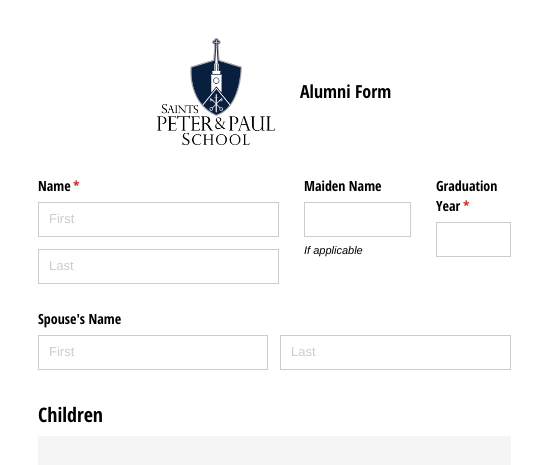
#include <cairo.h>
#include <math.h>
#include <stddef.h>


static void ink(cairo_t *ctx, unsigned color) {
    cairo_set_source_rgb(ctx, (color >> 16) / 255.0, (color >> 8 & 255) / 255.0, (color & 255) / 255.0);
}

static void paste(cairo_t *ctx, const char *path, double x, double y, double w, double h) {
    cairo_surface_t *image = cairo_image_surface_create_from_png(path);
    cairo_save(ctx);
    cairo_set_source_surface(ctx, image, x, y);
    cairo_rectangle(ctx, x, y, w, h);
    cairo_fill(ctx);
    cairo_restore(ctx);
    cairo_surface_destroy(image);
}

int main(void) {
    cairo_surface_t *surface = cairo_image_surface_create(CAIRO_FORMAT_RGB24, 548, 465);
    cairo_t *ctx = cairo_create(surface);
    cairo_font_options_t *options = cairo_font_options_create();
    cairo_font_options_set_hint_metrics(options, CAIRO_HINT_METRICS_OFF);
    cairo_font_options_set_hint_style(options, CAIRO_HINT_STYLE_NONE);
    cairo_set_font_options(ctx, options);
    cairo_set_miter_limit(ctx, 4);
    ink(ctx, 0xFFFFFF);
    cairo_paint(ctx);
    paste(ctx, "media/1.png", 157, 38, 118, 107);
    cairo_select_font_face(ctx, "Open Sans Condensed", CAIRO_FONT_SLANT_NORMAL, CAIRO_FONT_WEIGHT_BOLD);
    cairo_set_font_size(ctx, 18);
    ink(ctx, 0x000000);
    cairo_move_to(ctx, 300, 98);
    cairo_show_text(ctx, "Alumni Form");
    cairo_set_font_size(ctx, 14);
    cairo_move_to(ctx, 38, 191);
    cairo_show_text(ctx, "Name");
    ink(ctx, 0xCC2A24);
    cairo_move_to(ctx, 73, 191);
    cairo_show_text(ctx, "*");
    cairo_rectangle(ctx, 38.5, 202.5, 240, 34);
    ink(ctx, 0xCCCCCC);
    cairo_set_line_width(ctx, 1);
    cairo_stroke(ctx);
    cairo_select_font_face(ctx, "Liberation Sans", CAIRO_FONT_SLANT_NORMAL, CAIRO_FONT_WEIGHT_NORMAL);
    cairo_set_font_size(ctx, 13);
    cairo_move_to(ctx, 49, 223);
    cairo_show_text(ctx, "First");
    cairo_rectangle(ctx, 38.5, 249.5, 240, 34);
    cairo_stroke(ctx);
    cairo_move_to(ctx, 49, 270);
    cairo_show_text(ctx, "Last");
    cairo_select_font_face(ctx, "Open Sans Condensed", CAIRO_FONT_SLANT_NORMAL, CAIRO_FONT_WEIGHT_BOLD);
    cairo_set_font_size(ctx, 14);
    ink(ctx, 0x000000);
    cairo_move_to(ctx, 304, 191);
    cairo_show_text(ctx, "Maiden Name");
    cairo_rectangle(ctx, 304.5, 202.5, 106, 34);
    ink(ctx, 0xCCCCCC);
    cairo_stroke(ctx);
    cairo_select_font_face(ctx, "Liberation Sans", CAIRO_FONT_SLANT_ITALIC, CAIRO_FONT_WEIGHT_NORMAL);
    cairo_set_font_size(ctx, 11);
    ink(ctx, 0x000000);
    cairo_move_to(ctx, 304, 254);
    cairo_show_text(ctx, "If applicable");
    cairo_select_font_face(ctx, "Open Sans Condensed", CAIRO_FONT_SLANT_NORMAL, CAIRO_FONT_WEIGHT_BOLD);
    cairo_set_font_size(ctx, 14);
    cairo_move_to(ctx, 436, 191);
    cairo_show_text(ctx, "Graduation");
    cairo_move_to(ctx, 436, 211);
    cairo_show_text(ctx, "Year");
    ink(ctx, 0xCC2A24);
    cairo_move_to(ctx, 463, 211);
    cairo_show_text(ctx, "*");
    cairo_rectangle(ctx, 436.5, 222.5, 74, 34);
    ink(ctx, 0xCCCCCC);
    cairo_stroke(ctx);
    ink(ctx, 0x000000);
    cairo_move_to(ctx, 38, 324);
    cairo_show_text(ctx, "Spouse's Name");
    cairo_rectangle(ctx, 38.5, 335.5, 229, 34);
    ink(ctx, 0xCCCCCC);
    cairo_stroke(ctx);
    cairo_select_font_face(ctx, "Liberation Sans", CAIRO_FONT_SLANT_NORMAL, CAIRO_FONT_WEIGHT_NORMAL);
    cairo_set_font_size(ctx, 13);
    cairo_move_to(ctx, 49, 356);
    cairo_show_text(ctx, "First");
    cairo_rectangle(ctx, 280.5, 335.5, 230, 34);
    cairo_stroke(ctx);
    cairo_move_to(ctx, 291, 356);
    cairo_show_text(ctx, "Last");
    cairo_select_font_face(ctx, "Open Sans Condensed", CAIRO_FONT_SLANT_NORMAL, CAIRO_FONT_WEIGHT_BOLD);
    cairo_set_font_size(ctx, 20);
    ink(ctx, 0x000000);
    cairo_move_to(ctx, 38, 422);
    cairo_show_text(ctx, "Children");
    ink(ctx, 0xF5F5F5);
    cairo_rectangle(ctx, 38, 436, 473, 29);
    cairo_fill(ctx);
    cairo_surface_write_to_png(surface, "image.png");
    cairo_font_options_destroy(options);
    cairo_destroy(ctx);
    cairo_surface_destroy(surface);
    return 0;
}
